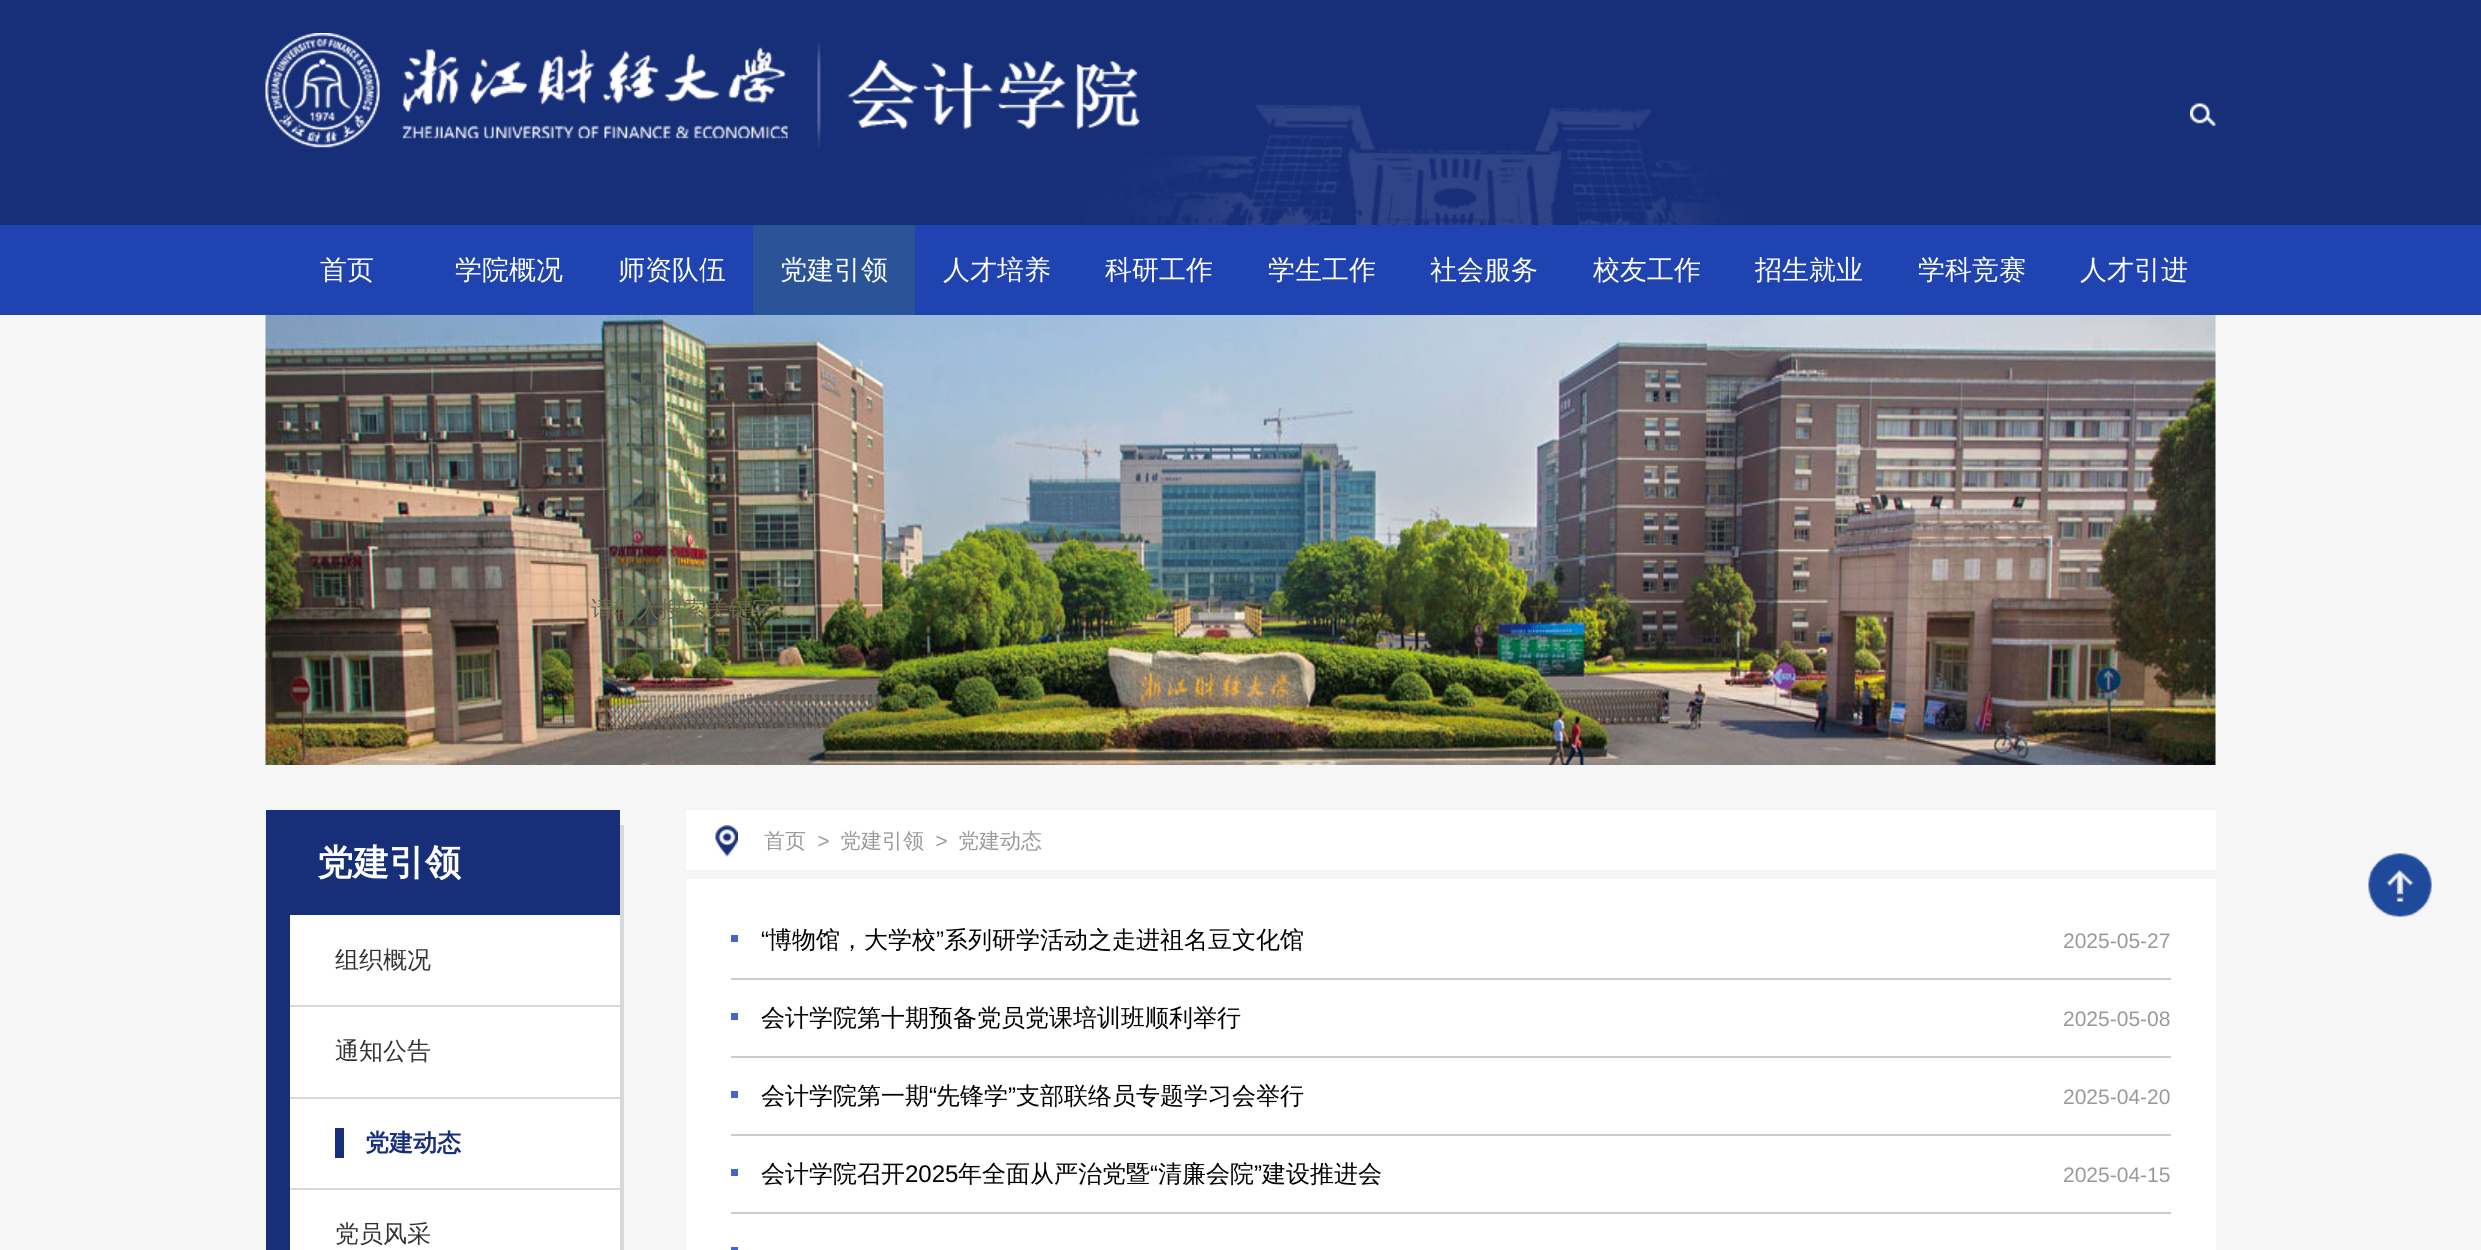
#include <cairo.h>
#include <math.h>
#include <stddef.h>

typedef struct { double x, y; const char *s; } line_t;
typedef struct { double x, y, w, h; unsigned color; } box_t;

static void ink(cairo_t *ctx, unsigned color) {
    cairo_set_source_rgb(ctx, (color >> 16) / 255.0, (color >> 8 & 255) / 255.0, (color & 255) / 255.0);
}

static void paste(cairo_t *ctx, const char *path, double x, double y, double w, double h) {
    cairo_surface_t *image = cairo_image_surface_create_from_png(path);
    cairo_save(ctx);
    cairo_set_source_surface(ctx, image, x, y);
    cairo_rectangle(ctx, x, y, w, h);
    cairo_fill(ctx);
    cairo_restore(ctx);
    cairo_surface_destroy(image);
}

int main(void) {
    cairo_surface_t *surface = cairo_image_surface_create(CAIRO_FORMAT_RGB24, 2481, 1250);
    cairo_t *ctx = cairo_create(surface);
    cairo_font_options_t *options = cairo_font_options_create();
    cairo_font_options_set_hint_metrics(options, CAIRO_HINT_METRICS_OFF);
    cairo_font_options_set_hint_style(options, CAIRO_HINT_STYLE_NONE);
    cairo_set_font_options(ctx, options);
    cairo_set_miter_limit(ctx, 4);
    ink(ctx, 0xF6F6F6);
    cairo_paint(ctx);
    paste(ctx, "media/1.png", 0, 0, 2481, 225);
    paste(ctx, "media/2.png", 265, 33, 875, 115);
    paste(ctx, "media/3.png", 2190, 103, 26, 23);
    ink(ctx, 0x1F43B0);
    cairo_rectangle(ctx, 0, 225, 2481, 90);
    cairo_fill(ctx);
    cairo_select_font_face(ctx, "WenQuanYi Zen Hei Medium", CAIRO_FONT_SLANT_NORMAL, CAIRO_FONT_WEIGHT_NORMAL);
    cairo_set_font_size(ctx, 27);
    ink(ctx, 0xFFFFFF);
    {
        static const line_t items[] = {
            {320, 279, "首页"},
            {455, 279, "学院概况"},
            {618, 279, "师资队伍"},
        };
        for (size_t i = 0; i < sizeof items / sizeof *items; i++) {
            cairo_move_to(ctx, items[i].x, items[i].y);
            cairo_show_text(ctx, items[i].s);
        }
    }
    ink(ctx, 0x2A5398);
    cairo_rectangle(ctx, 753, 225, 162, 90);
    cairo_fill(ctx);
    ink(ctx, 0xFFFFFF);
    {
        static const line_t items[] = {
            {780, 279, "党建引领"},
            {943, 279, "人才培养"},
            {1105, 279, "科研工作"},
            {1268, 279, "学生工作"},
            {1430, 279, "社会服务"},
            {1593, 279, "校友工作"},
            {1755, 279, "招生就业"},
            {1918, 279, "学科竞赛"},
            {2080, 279, "人才引进"},
        };
        for (size_t i = 0; i < sizeof items / sizeof *items; i++) {
            cairo_move_to(ctx, items[i].x, items[i].y);
            cairo_show_text(ctx, items[i].s);
        }
    }
    paste(ctx, "media/4.png", 265, 315, 1951, 450);
    cairo_set_font_size(ctx, 23);
    ink(ctx, 0x696A4F);
    cairo_move_to(ctx, 591, 617);
    cairo_show_text(ctx, "请输入搜索关键字");
    cairo_select_font_face(ctx, "Liberation Sans", CAIRO_FONT_SLANT_NORMAL, CAIRO_FONT_WEIGHT_NORMAL);
    ink(ctx, 0x6B704D);
    cairo_move_to(ctx, 776, 617);
    cairo_show_text(ctx, "...");
    {
        static const box_t items[] = {
            {266, 810, 24, 440, 0x172F79},
            {290, 915, 330, 335, 0xFFFFFF},
            {290, 810, 330, 105, 0x172F79},
        };
        for (size_t i = 0; i < sizeof items / sizeof *items; i++) {
            ink(ctx, items[i].color);
            cairo_rectangle(ctx, items[i].x, items[i].y, items[i].w, items[i].h);
            cairo_fill(ctx);
        }
    }
    cairo_select_font_face(ctx, "WenQuanYi Zen Hei", CAIRO_FONT_SLANT_NORMAL, CAIRO_FONT_WEIGHT_BOLD);
    cairo_set_font_size(ctx, 36);
    ink(ctx, 0xFFFFFF);
    cairo_move_to(ctx, 317, 875);
    cairo_show_text(ctx, "党建引领");
    ink(ctx, 0xD9D9D9);
    cairo_rectangle(ctx, 290, 1005, 330, 2);
    cairo_fill(ctx);
    cairo_select_font_face(ctx, "WenQuanYi Zen Hei Medium", CAIRO_FONT_SLANT_NORMAL, CAIRO_FONT_WEIGHT_NORMAL);
    cairo_set_font_size(ctx, 24);
    ink(ctx, 0x333333);
    cairo_move_to(ctx, 335, 968);
    cairo_show_text(ctx, "组织概况");
    ink(ctx, 0xD9D9D9);
    cairo_rectangle(ctx, 290, 1097, 330, 2);
    cairo_fill(ctx);
    ink(ctx, 0x333333);
    cairo_move_to(ctx, 335, 1059);
    cairo_show_text(ctx, "通知公告");
    ink(ctx, 0xD9D9D9);
    cairo_rectangle(ctx, 290, 1188, 330, 2);
    cairo_fill(ctx);
    ink(ctx, 0x172F79);
    cairo_rectangle(ctx, 335, 1128, 9, 30);
    cairo_fill(ctx);
    cairo_select_font_face(ctx, "WenQuanYi Zen Hei", CAIRO_FONT_SLANT_NORMAL, CAIRO_FONT_WEIGHT_BOLD);
    cairo_move_to(ctx, 365, 1151);
    cairo_show_text(ctx, "党建动态");
    cairo_select_font_face(ctx, "WenQuanYi Zen Hei Medium", CAIRO_FONT_SLANT_NORMAL, CAIRO_FONT_WEIGHT_NORMAL);
    ink(ctx, 0x333333);
    cairo_move_to(ctx, 335, 1242);
    cairo_show_text(ctx, "党员风采");
    ink(ctx, 0xD7D9D9);
    cairo_rectangle(ctx, 620, 825, 4, 425);
    cairo_fill(ctx);
    ink(ctx, 0xFFFFFF);
    cairo_rectangle(ctx, 686, 810, 1530, 60);
    cairo_fill(ctx);
    paste(ctx, "media/5.png", 715, 825, 23, 32);
    cairo_set_font_size(ctx, 21);
    ink(ctx, 0x999999);
    cairo_move_to(ctx, 764, 848);
    cairo_show_text(ctx, "首页");
    cairo_select_font_face(ctx, "Liberation Sans", CAIRO_FONT_SLANT_ITALIC, CAIRO_FONT_WEIGHT_NORMAL);
    cairo_move_to(ctx, 817, 848);
    cairo_show_text(ctx, ">");
    cairo_select_font_face(ctx, "WenQuanYi Zen Hei Medium", CAIRO_FONT_SLANT_NORMAL, CAIRO_FONT_WEIGHT_NORMAL);
    cairo_move_to(ctx, 840, 848);
    cairo_show_text(ctx, "党建引领");
    cairo_select_font_face(ctx, "Liberation Sans", CAIRO_FONT_SLANT_ITALIC, CAIRO_FONT_WEIGHT_NORMAL);
    cairo_move_to(ctx, 935, 848);
    cairo_show_text(ctx, ">");
    cairo_select_font_face(ctx, "WenQuanYi Zen Hei Medium", CAIRO_FONT_SLANT_NORMAL, CAIRO_FONT_WEIGHT_NORMAL);
    cairo_move_to(ctx, 958, 848);
    cairo_show_text(ctx, "党建动态");
    ink(ctx, 0xFFFFFF);
    cairo_rectangle(ctx, 686, 879, 1530, 371);
    cairo_fill(ctx);
    ink(ctx, 0xCCCCCC);
    cairo_rectangle(ctx, 731, 978, 1440, 2);
    cairo_fill(ctx);
    cairo_select_font_face(ctx, "Liberation Sans", CAIRO_FONT_SLANT_NORMAL, CAIRO_FONT_WEIGHT_NORMAL);
    cairo_set_font_size(ctx, 24);
    ink(ctx, 0x000000);
    cairo_move_to(ctx, 761, 948);
    cairo_show_text(ctx, "“");
    cairo_select_font_face(ctx, "WenQuanYi Zen Hei Medium", CAIRO_FONT_SLANT_NORMAL, CAIRO_FONT_WEIGHT_NORMAL);
    cairo_move_to(ctx, 768, 948);
    cairo_show_text(ctx, "博物馆，大学校");
    cairo_select_font_face(ctx, "Liberation Sans", CAIRO_FONT_SLANT_NORMAL, CAIRO_FONT_WEIGHT_NORMAL);
    cairo_move_to(ctx, 936, 948);
    cairo_show_text(ctx, "”");
    cairo_select_font_face(ctx, "WenQuanYi Zen Hei Medium", CAIRO_FONT_SLANT_NORMAL, CAIRO_FONT_WEIGHT_NORMAL);
    cairo_move_to(ctx, 944, 948);
    cairo_show_text(ctx, "系列研学活动之走进祖名豆文化馆");
    ink(ctx, 0x4465CB);
    cairo_rectangle(ctx, 731, 935, 7, 7);
    cairo_fill(ctx);
    cairo_select_font_face(ctx, "Liberation Sans", CAIRO_FONT_SLANT_NORMAL, CAIRO_FONT_WEIGHT_NORMAL);
    cairo_set_font_size(ctx, 21);
    ink(ctx, 0x999999);
    cairo_move_to(ctx, 2063, 948);
    cairo_show_text(ctx, "2025-05-27");
    ink(ctx, 0xCCCCCC);
    cairo_rectangle(ctx, 731, 1056, 1440, 2);
    cairo_fill(ctx);
    ink(ctx, 0x4465CB);
    cairo_rectangle(ctx, 731, 1013, 7, 7);
    cairo_fill(ctx);
    cairo_select_font_face(ctx, "WenQuanYi Zen Hei Medium", CAIRO_FONT_SLANT_NORMAL, CAIRO_FONT_WEIGHT_NORMAL);
    cairo_set_font_size(ctx, 24);
    ink(ctx, 0x000000);
    cairo_move_to(ctx, 761, 1026);
    cairo_show_text(ctx, "会计学院第十期预备党员党课培训班顺利举行");
    cairo_select_font_face(ctx, "Liberation Sans", CAIRO_FONT_SLANT_NORMAL, CAIRO_FONT_WEIGHT_NORMAL);
    cairo_set_font_size(ctx, 21);
    ink(ctx, 0x999999);
    cairo_move_to(ctx, 2063, 1026);
    cairo_show_text(ctx, "2025-05-08");
    ink(ctx, 0xCCCCCC);
    cairo_rectangle(ctx, 731, 1134, 1440, 2);
    cairo_fill(ctx);
    cairo_select_font_face(ctx, "WenQuanYi Zen Hei Medium", CAIRO_FONT_SLANT_NORMAL, CAIRO_FONT_WEIGHT_NORMAL);
    cairo_set_font_size(ctx, 24);
    ink(ctx, 0x000000);
    cairo_move_to(ctx, 761, 1104);
    cairo_show_text(ctx, "会计学院第一期");
    cairo_select_font_face(ctx, "Liberation Sans", CAIRO_FONT_SLANT_NORMAL, CAIRO_FONT_WEIGHT_NORMAL);
    cairo_move_to(ctx, 929, 1104);
    cairo_show_text(ctx, "“");
    cairo_select_font_face(ctx, "WenQuanYi Zen Hei Medium", CAIRO_FONT_SLANT_NORMAL, CAIRO_FONT_WEIGHT_NORMAL);
    cairo_move_to(ctx, 936, 1104);
    cairo_show_text(ctx, "先锋学");
    cairo_select_font_face(ctx, "Liberation Sans", CAIRO_FONT_SLANT_NORMAL, CAIRO_FONT_WEIGHT_NORMAL);
    cairo_move_to(ctx, 1008, 1104);
    cairo_show_text(ctx, "”");
    cairo_select_font_face(ctx, "WenQuanYi Zen Hei Medium", CAIRO_FONT_SLANT_NORMAL, CAIRO_FONT_WEIGHT_NORMAL);
    cairo_move_to(ctx, 1016, 1104);
    cairo_show_text(ctx, "支部联络员专题学习会举行");
    ink(ctx, 0x4465CB);
    cairo_rectangle(ctx, 731, 1091, 7, 7);
    cairo_fill(ctx);
    cairo_select_font_face(ctx, "Liberation Sans", CAIRO_FONT_SLANT_NORMAL, CAIRO_FONT_WEIGHT_NORMAL);
    cairo_set_font_size(ctx, 21);
    ink(ctx, 0x999999);
    cairo_move_to(ctx, 2063, 1104);
    cairo_show_text(ctx, "2025-04-20");
    ink(ctx, 0xCCCCCC);
    cairo_rectangle(ctx, 731, 1212, 1440, 2);
    cairo_fill(ctx);
    cairo_select_font_face(ctx, "WenQuanYi Zen Hei Medium", CAIRO_FONT_SLANT_NORMAL, CAIRO_FONT_WEIGHT_NORMAL);
    cairo_set_font_size(ctx, 24);
    ink(ctx, 0x000000);
    cairo_move_to(ctx, 761, 1182);
    cairo_show_text(ctx, "会计学院召开");
    cairo_select_font_face(ctx, "Liberation Sans", CAIRO_FONT_SLANT_NORMAL, CAIRO_FONT_WEIGHT_NORMAL);
    cairo_move_to(ctx, 905, 1182);
    cairo_show_text(ctx, "2025");
    cairo_select_font_face(ctx, "WenQuanYi Zen Hei Medium", CAIRO_FONT_SLANT_NORMAL, CAIRO_FONT_WEIGHT_NORMAL);
    cairo_move_to(ctx, 958, 1182);
    cairo_show_text(ctx, "年全面从严治党暨");
    cairo_select_font_face(ctx, "Liberation Sans", CAIRO_FONT_SLANT_NORMAL, CAIRO_FONT_WEIGHT_NORMAL);
    cairo_move_to(ctx, 1150, 1182);
    cairo_show_text(ctx, "“");
    cairo_select_font_face(ctx, "WenQuanYi Zen Hei Medium", CAIRO_FONT_SLANT_NORMAL, CAIRO_FONT_WEIGHT_NORMAL);
    cairo_move_to(ctx, 1158, 1182);
    cairo_show_text(ctx, "清廉会院");
    cairo_select_font_face(ctx, "Liberation Sans", CAIRO_FONT_SLANT_NORMAL, CAIRO_FONT_WEIGHT_NORMAL);
    cairo_move_to(ctx, 1254, 1182);
    cairo_show_text(ctx, "”");
    cairo_select_font_face(ctx, "WenQuanYi Zen Hei Medium", CAIRO_FONT_SLANT_NORMAL, CAIRO_FONT_WEIGHT_NORMAL);
    cairo_move_to(ctx, 1262, 1182);
    cairo_show_text(ctx, "建设推进会");
    ink(ctx, 0x4465CB);
    cairo_rectangle(ctx, 731, 1169, 7, 7);
    cairo_fill(ctx);
    cairo_select_font_face(ctx, "Liberation Sans", CAIRO_FONT_SLANT_NORMAL, CAIRO_FONT_WEIGHT_NORMAL);
    cairo_set_font_size(ctx, 21);
    ink(ctx, 0x999999);
    cairo_move_to(ctx, 2063, 1182);
    cairo_show_text(ctx, "2025-04-15");
    ink(ctx, 0x4465CB);
    cairo_rectangle(ctx, 731, 1247, 7, 3);
    cairo_fill(ctx);
    paste(ctx, "media/6.png", 2368, 853, 64, 64);
    cairo_surface_write_to_png(surface, "image.png");
    cairo_font_options_destroy(options);
    cairo_destroy(ctx);
    cairo_surface_destroy(surface);
    return 0;
}
